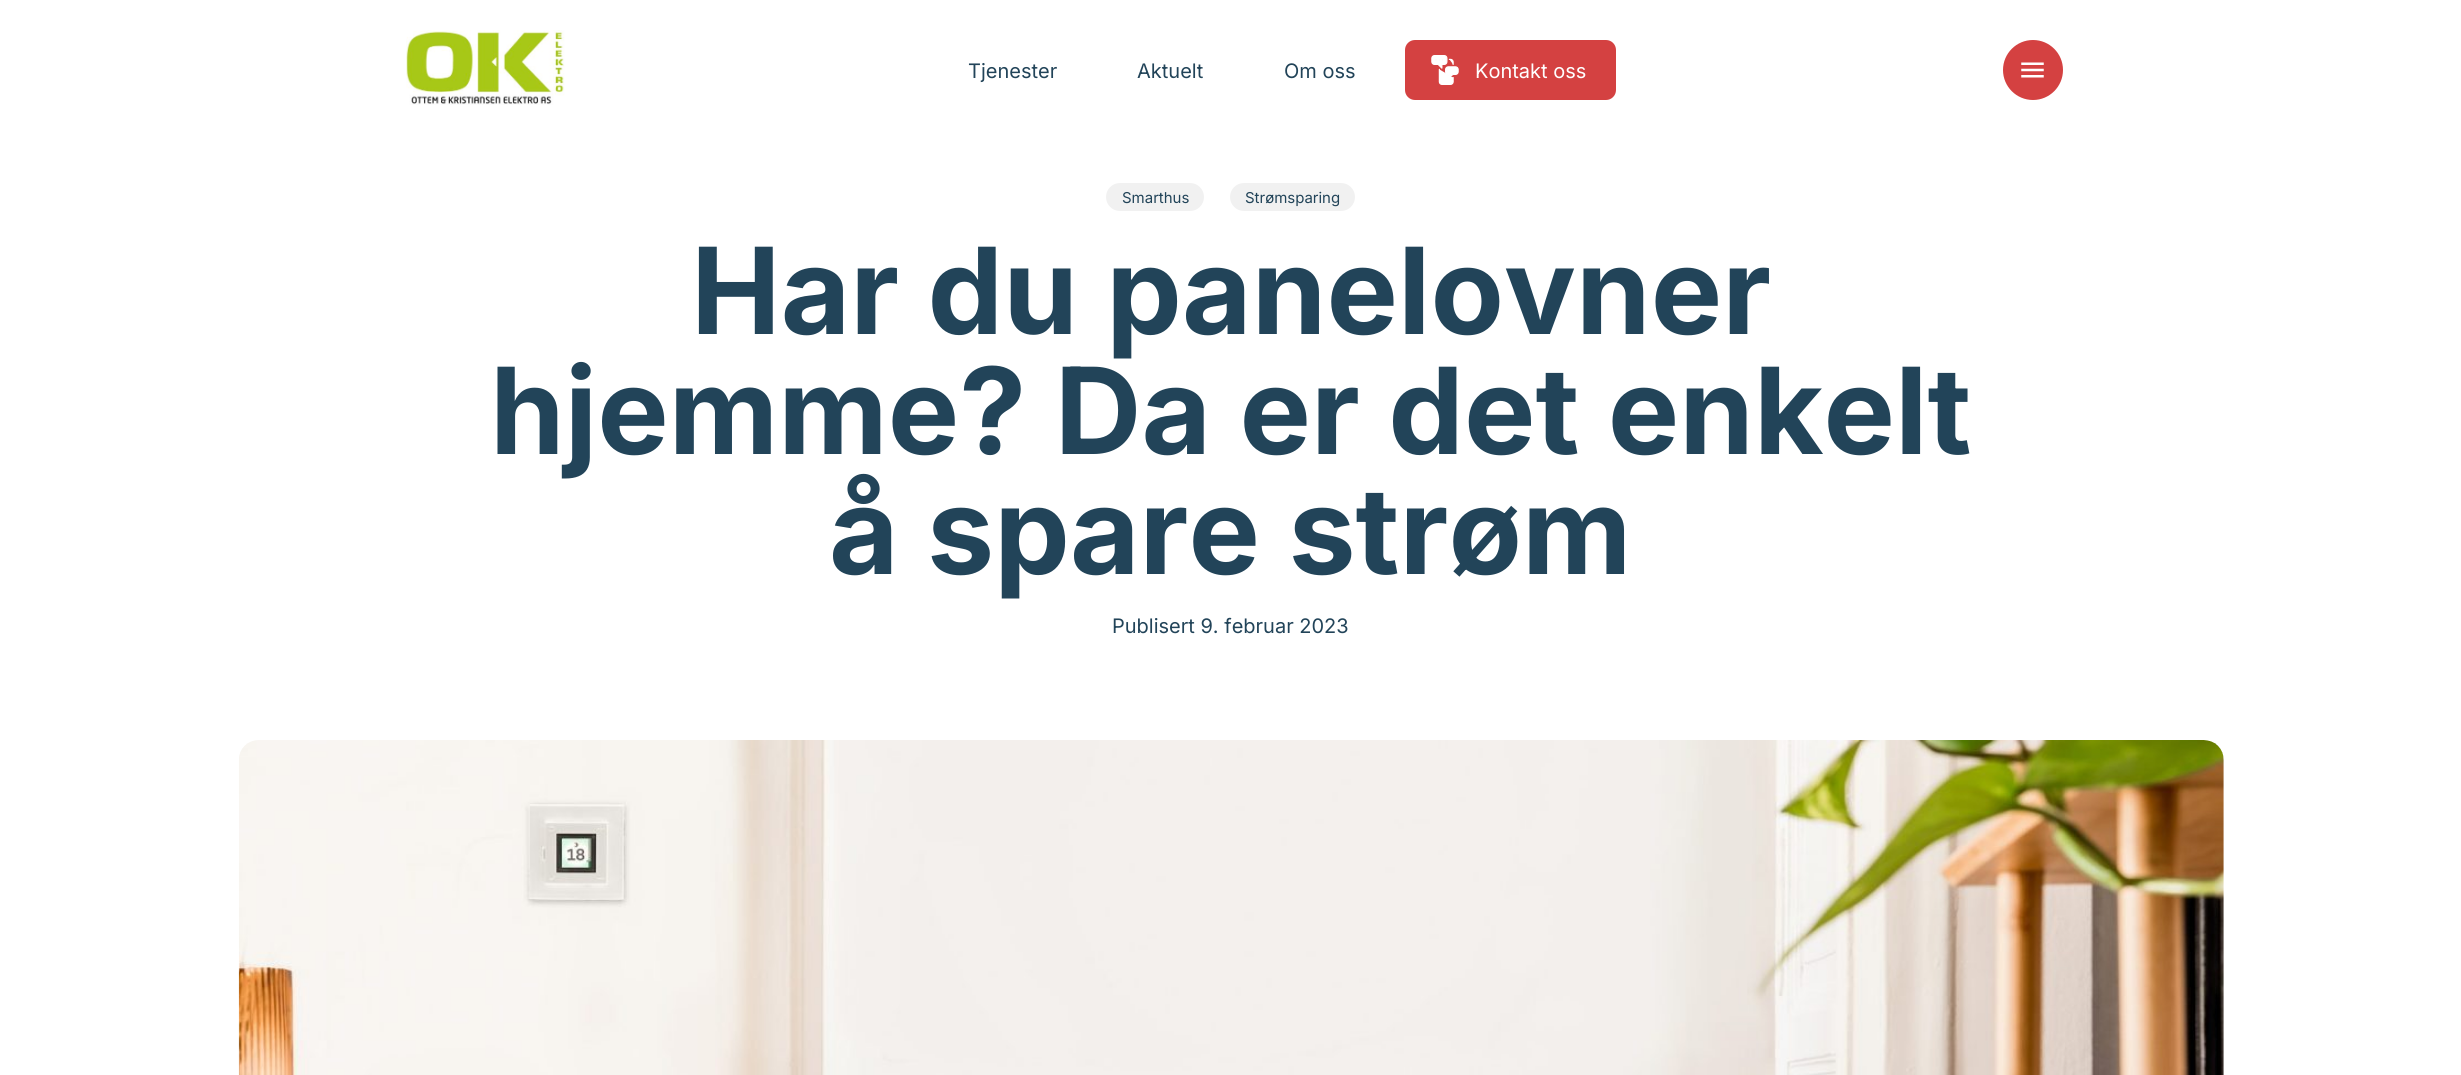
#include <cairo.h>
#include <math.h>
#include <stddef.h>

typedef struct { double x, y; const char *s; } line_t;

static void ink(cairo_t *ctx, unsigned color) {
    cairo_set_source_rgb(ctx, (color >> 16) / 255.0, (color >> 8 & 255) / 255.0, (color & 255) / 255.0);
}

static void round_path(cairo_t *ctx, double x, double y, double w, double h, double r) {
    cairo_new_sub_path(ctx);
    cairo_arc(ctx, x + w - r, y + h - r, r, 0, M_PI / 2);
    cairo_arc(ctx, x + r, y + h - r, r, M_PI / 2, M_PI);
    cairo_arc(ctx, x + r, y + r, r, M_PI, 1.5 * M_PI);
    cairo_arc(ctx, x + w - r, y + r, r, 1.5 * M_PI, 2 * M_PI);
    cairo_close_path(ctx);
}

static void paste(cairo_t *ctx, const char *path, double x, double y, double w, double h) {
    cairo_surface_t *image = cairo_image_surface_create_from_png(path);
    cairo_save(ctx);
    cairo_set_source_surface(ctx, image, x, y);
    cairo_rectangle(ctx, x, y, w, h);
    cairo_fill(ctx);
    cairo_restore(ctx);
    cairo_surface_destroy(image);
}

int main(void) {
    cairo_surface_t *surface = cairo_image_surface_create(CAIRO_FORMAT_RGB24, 2461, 1075);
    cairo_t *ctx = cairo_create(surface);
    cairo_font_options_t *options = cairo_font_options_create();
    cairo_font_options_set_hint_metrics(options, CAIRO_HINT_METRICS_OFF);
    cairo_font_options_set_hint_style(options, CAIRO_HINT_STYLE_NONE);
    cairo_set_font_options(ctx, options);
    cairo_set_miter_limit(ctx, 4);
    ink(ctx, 0xFFFFFF);
    cairo_paint(ctx);
    paste(ctx, "media/1.png", 406, 30, 159, 75);
    cairo_select_font_face(ctx, "Inter", CAIRO_FONT_SLANT_NORMAL, CAIRO_FONT_WEIGHT_NORMAL);
    cairo_set_font_size(ctx, 20);
    ink(ctx, 0x224459);
    {
        static const line_t items[] = {
            {968, 78, "Tjenester"},
            {1137, 78, "Aktuelt"},
            {1284, 78, "Om oss"},
        };
        for (size_t i = 0; i < sizeof items / sizeof *items; i++) {
            cairo_move_to(ctx, items[i].x, items[i].y);
            cairo_show_text(ctx, items[i].s);
        }
    }
    ink(ctx, 0xD44141);
    round_path(ctx, 1405, 40, 211, 60, 10);
    cairo_fill(ctx);
    paste(ctx, "media/2.png", 1431, 55, 28, 30);
    ink(ctx, 0xFFFFFF);
    cairo_move_to(ctx, 1475, 78);
    cairo_show_text(ctx, "Kontakt oss");
    ink(ctx, 0xD44141);
    cairo_new_path(ctx);
    cairo_arc(ctx, 2033, 70, 30, 0, 2 * M_PI);
    cairo_fill(ctx);
    paste(ctx, "media/3.png", 2021, 62, 23, 16);
    ink(ctx, 0xF1F1F1);
    round_path(ctx, 1106, 183, 98, 28, 14);
    cairo_fill(ctx);
    cairo_set_font_size(ctx, 15);
    ink(ctx, 0x224459);
    cairo_move_to(ctx, 1122, 203);
    cairo_show_text(ctx, "Smarthus");
    ink(ctx, 0xF1F1F1);
    round_path(ctx, 1230, 183, 125, 28, 14);
    cairo_fill(ctx);
    ink(ctx, 0x224459);
    cairo_move_to(ctx, 1245, 203);
    cairo_show_text(ctx, "Strømsparing");
    cairo_select_font_face(ctx, "Inter", CAIRO_FONT_SLANT_NORMAL, CAIRO_FONT_WEIGHT_BOLD);
    cairo_set_font_size(ctx, 120);
    {
        static const line_t items[] = {
            {691, 334, "Har du panelovner"},
            {490, 454, "hjemme? Da er det enkelt"},
            {829, 574, "å spare strøm"},
        };
        for (size_t i = 0; i < sizeof items / sizeof *items; i++) {
            cairo_move_to(ctx, items[i].x, items[i].y);
            cairo_show_text(ctx, items[i].s);
        }
    }
    cairo_select_font_face(ctx, "Inter", CAIRO_FONT_SLANT_NORMAL, CAIRO_FONT_WEIGHT_NORMAL);
    cairo_set_font_size(ctx, 20);
    cairo_move_to(ctx, 1112, 633);
    cairo_show_text(ctx, "Publisert 9. februar 2023");
    paste(ctx, "media/4.png", 238, 740, 1986, 335);
    cairo_surface_write_to_png(surface, "image.png");
    cairo_font_options_destroy(options);
    cairo_destroy(ctx);
    cairo_surface_destroy(surface);
    return 0;
}
